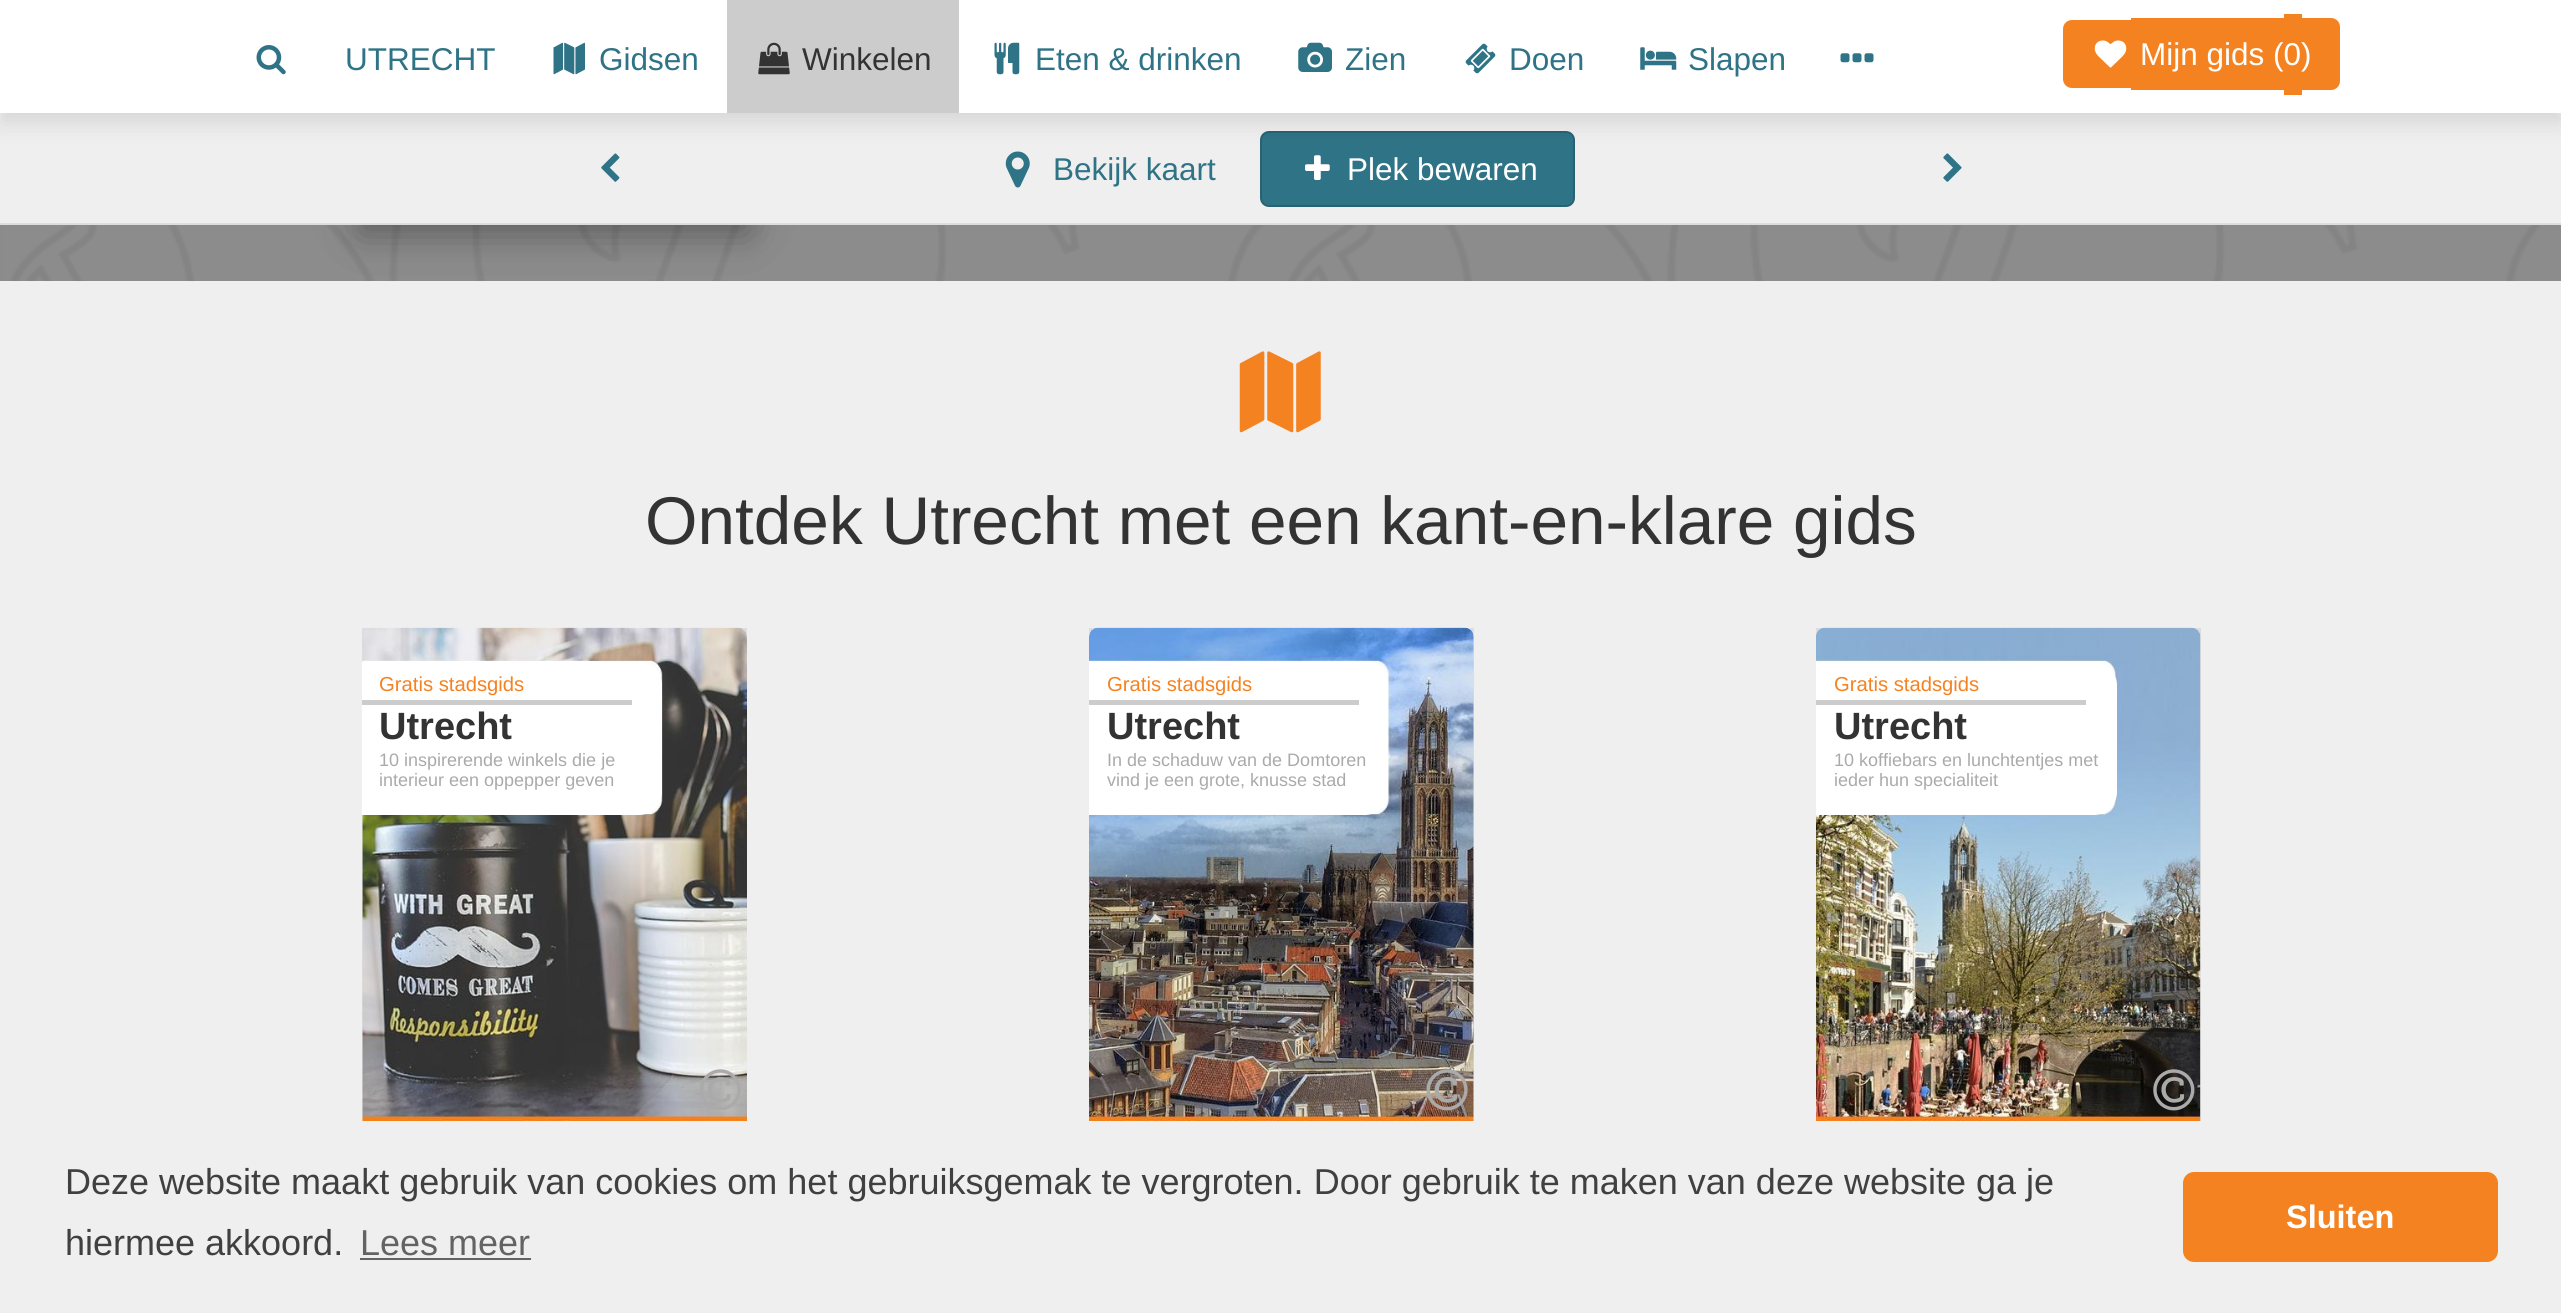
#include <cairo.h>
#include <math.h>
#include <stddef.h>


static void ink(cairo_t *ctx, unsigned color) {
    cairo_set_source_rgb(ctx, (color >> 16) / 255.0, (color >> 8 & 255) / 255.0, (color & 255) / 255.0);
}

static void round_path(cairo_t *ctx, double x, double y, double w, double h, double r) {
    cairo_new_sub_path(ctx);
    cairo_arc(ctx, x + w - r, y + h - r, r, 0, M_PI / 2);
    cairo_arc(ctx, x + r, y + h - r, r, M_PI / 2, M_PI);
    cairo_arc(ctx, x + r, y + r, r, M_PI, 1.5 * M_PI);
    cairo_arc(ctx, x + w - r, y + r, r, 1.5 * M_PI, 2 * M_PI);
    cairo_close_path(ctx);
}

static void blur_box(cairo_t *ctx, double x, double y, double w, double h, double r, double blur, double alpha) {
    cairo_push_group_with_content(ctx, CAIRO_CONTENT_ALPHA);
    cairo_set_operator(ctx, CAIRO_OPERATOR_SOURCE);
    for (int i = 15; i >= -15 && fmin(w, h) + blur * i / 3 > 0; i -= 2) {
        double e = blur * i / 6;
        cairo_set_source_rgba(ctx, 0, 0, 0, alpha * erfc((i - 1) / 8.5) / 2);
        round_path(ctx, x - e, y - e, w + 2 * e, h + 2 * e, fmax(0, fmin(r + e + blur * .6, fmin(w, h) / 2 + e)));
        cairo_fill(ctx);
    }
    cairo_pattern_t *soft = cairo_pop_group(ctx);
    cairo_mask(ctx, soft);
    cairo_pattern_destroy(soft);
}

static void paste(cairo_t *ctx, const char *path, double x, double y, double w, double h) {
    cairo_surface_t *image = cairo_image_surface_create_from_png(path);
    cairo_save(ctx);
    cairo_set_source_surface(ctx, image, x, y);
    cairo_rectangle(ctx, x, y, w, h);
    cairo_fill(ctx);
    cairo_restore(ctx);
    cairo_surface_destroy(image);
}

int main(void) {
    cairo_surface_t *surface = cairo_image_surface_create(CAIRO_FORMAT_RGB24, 2561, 1313);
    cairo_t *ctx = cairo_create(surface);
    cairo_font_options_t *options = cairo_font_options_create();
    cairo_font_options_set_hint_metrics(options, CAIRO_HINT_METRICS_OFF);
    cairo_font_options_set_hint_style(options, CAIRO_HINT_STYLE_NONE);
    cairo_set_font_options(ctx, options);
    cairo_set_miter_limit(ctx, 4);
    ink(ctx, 0x8C8C8C);
    cairo_paint(ctx);
    paste(ctx, "media/1.png", 0, 225, 2561, 56);
    ink(ctx, 0xEFEFEF);
    cairo_rectangle(ctx, 0, 281, 2561, 840);
    cairo_fill(ctx);
    ink(ctx, 0x000000);
    blur_box(ctx, 360, -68, 389, 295, 0, 22.5, 0.19);
    blur_box(ctx, 360, -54, 389, 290, 0, 18, 0.2);
    ink(ctx, 0xEFEFEF);
    cairo_rectangle(ctx, 0, 113, 2561, 110);
    cairo_fill(ctx);
    paste(ctx, "media/11.png", 601, 153, 19, 29);
    paste(ctx, "media/12.png", 1005, 151, 25, 37);
    ink(ctx, 0x2F7386);
    round_path(ctx, 1261, 132, 313, 74, 8);
    cairo_fill_preserve(ctx);
    ink(ctx, 0x286373);
    cairo_stroke(ctx);
    paste(ctx, "media/13.png", 1305, 155, 25, 25);
    paste(ctx, "media/14.png", 1943, 153, 19, 29);
    ink(ctx, 0x000000);
    blur_box(ctx, 0, 11, 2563, 113, 0, 11, 0.1);
    ink(ctx, 0xFFFFFF);
    cairo_rectangle(ctx, 0, 0, 2561, 113);
    cairo_fill(ctx);
    paste(ctx, "media/2.png", 256, 45, 30, 30);
    cairo_select_font_face(ctx, "Liberation Sans", CAIRO_FONT_SLANT_NORMAL, CAIRO_FONT_WEIGHT_NORMAL);
    cairo_set_font_size(ctx, 31.5);
    ink(ctx, 0x2F7386);
    cairo_move_to(ctx, 345, 70);
    cairo_show_text(ctx, "UTRECHT");
    paste(ctx, "media/3.png", 553, 42, 32, 33);
    cairo_move_to(ctx, 599, 70);
    cairo_show_text(ctx, "Gidsen");
    ink(ctx, 0xCCCCCC);
    cairo_rectangle(ctx, 727, 0, 232, 113);
    cairo_fill(ctx);
    paste(ctx, "media/4.png", 758, 42, 32, 33);
    ink(ctx, 0x333333);
    cairo_move_to(ctx, 802, 70);
    cairo_show_text(ctx, "Winkelen");
    paste(ctx, "media/5.png", 994, 42, 26, 33);
    ink(ctx, 0x2F7386);
    cairo_move_to(ctx, 1035, 70);
    cairo_show_text(ctx, "Eten & drinken");
    paste(ctx, "media/6.png", 1298, 42, 34, 30);
    cairo_move_to(ctx, 1345, 70);
    cairo_show_text(ctx, "Zien");
    paste(ctx, "media/7.png", 1465, 43, 31, 31);
    cairo_move_to(ctx, 1509, 70);
    cairo_show_text(ctx, "Doen");
    paste(ctx, "media/8.png", 1640, 47, 37, 23);
    cairo_move_to(ctx, 1688, 70);
    cairo_show_text(ctx, "Slapen");
    paste(ctx, "media/9.png", 1840, 53, 34, 10);
    ink(ctx, 0xF58220);
    cairo_new_path(ctx);
    cairo_move_to(ctx, 2072, 20);
    cairo_line_to(ctx, 2131, 20);
    cairo_line_to(ctx, 2131, 88);
    cairo_line_to(ctx, 2072, 88);
    cairo_curve_to(ctx, 2067, 88, 2063, 84, 2063, 79);
    cairo_line_to(ctx, 2063, 29);
    cairo_curve_to(ctx, 2063, 24, 2067, 20, 2072, 20);
    cairo_close_path(ctx);
    cairo_fill(ctx);
    cairo_rectangle(ctx, 2131, 18, 153, 72);
    cairo_fill(ctx);
    cairo_rectangle(ctx, 2284, 14, 18, 81);
    cairo_fill(ctx);
    cairo_new_path(ctx);
    cairo_move_to(ctx, 2302, 18);
    cairo_line_to(ctx, 2331, 18);
    cairo_curve_to(ctx, 2336, 18, 2340, 22, 2340, 27);
    cairo_line_to(ctx, 2340, 81);
    cairo_curve_to(ctx, 2340, 86, 2336, 90, 2331, 90);
    cairo_line_to(ctx, 2302, 90);
    cairo_close_path(ctx);
    cairo_fill(ctx);
    paste(ctx, "media/10.png", 2094, 40, 33, 28);
    ink(ctx, 0xFFFFFF);
    cairo_move_to(ctx, 2140, 65);
    cairo_show_text(ctx, "Mijn gids (0)");
    ink(ctx, 0xDDDDDD);
    cairo_rectangle(ctx, 0, 223, 2561, 2);
    cairo_fill(ctx);
    ink(ctx, 0x2F7386);
    cairo_move_to(ctx, 1053, 180);
    cairo_show_text(ctx, "Bekijk kaart");
    ink(ctx, 0xFFFFFF);
    cairo_move_to(ctx, 1347, 180);
    cairo_show_text(ctx, "Plek bewaren");
    paste(ctx, "media/15.png", 1239, 351, 82, 82);
    cairo_set_font_size(ctx, 67.5);
    ink(ctx, 0x333333);
    cairo_move_to(ctx, 645, 544);
    cairo_show_text(ctx, "Ontdek Utrecht met een kant-en-klare gids");
    ink(ctx, 0xDDDDDD);
    cairo_rectangle(ctx, 362, 628, 385, 493);
    cairo_fill(ctx);
    cairo_rectangle(ctx, 361, 627, 387, 547);
    ink(ctx, 0xEFEFEF);
    cairo_stroke(ctx);
    paste(ctx, "media/16.png", 362, 627, 385, 494);
    ink(ctx, 0xFFFFFF);
    cairo_new_path(ctx);
    cairo_move_to(ctx, 362, 662);
    cairo_line_to(ctx, 639, 662);
    cairo_curve_to(ctx, 651.5, 662, 662, 672.5, 662, 685);
    cairo_line_to(ctx, 662, 792);
    cairo_curve_to(ctx, 662, 804.5, 651.5, 815, 639, 815);
    cairo_line_to(ctx, 362, 815);
    cairo_close_path(ctx);
    cairo_fill(ctx);
    ink(ctx, 0xCCCCCC);
    cairo_rectangle(ctx, 362, 700, 270, 5);
    cairo_fill(ctx);
    cairo_set_font_size(ctx, 20.25);
    ink(ctx, 0xF58220);
    cairo_move_to(ctx, 379, 691);
    cairo_show_text(ctx, "Gratis stadsgids");
    cairo_select_font_face(ctx, "Liberation Sans", CAIRO_FONT_SLANT_NORMAL, CAIRO_FONT_WEIGHT_BOLD);
    cairo_set_font_size(ctx, 38);
    ink(ctx, 0x333333);
    cairo_move_to(ctx, 379, 739);
    cairo_show_text(ctx, "Utrecht");
    cairo_select_font_face(ctx, "Liberation Sans", CAIRO_FONT_SLANT_NORMAL, CAIRO_FONT_WEIGHT_NORMAL);
    cairo_set_font_size(ctx, 18);
    ink(ctx, 0xAAAAAA);
    cairo_move_to(ctx, 379, 766);
    cairo_show_text(ctx, "10 inspirerende winkels die je");
    cairo_move_to(ctx, 379, 786);
    cairo_show_text(ctx, "interieur een oppepper geven");
    paste(ctx, "media/17.png", 700, 1069, 41, 41);
    ink(ctx, 0xDDDDDD);
    cairo_rectangle(ctx, 1089, 628, 385, 493);
    cairo_fill(ctx);
    cairo_rectangle(ctx, 1088, 627, 387, 547);
    ink(ctx, 0xEFEFEF);
    cairo_stroke(ctx);
    paste(ctx, "media/18.png", 1089, 627, 385, 494);
    ink(ctx, 0xFFFFFF);
    cairo_new_path(ctx);
    cairo_move_to(ctx, 1089, 662);
    cairo_line_to(ctx, 1365, 662);
    cairo_curve_to(ctx, 1377.5, 662, 1388, 672.5, 1388, 685);
    cairo_line_to(ctx, 1388, 792);
    cairo_curve_to(ctx, 1388, 804.5, 1377.5, 815, 1365, 815);
    cairo_line_to(ctx, 1089, 815);
    cairo_close_path(ctx);
    cairo_fill(ctx);
    ink(ctx, 0xCCCCCC);
    cairo_rectangle(ctx, 1089, 700, 270, 5);
    cairo_fill(ctx);
    cairo_set_font_size(ctx, 20.25);
    ink(ctx, 0xF58220);
    cairo_move_to(ctx, 1107, 691);
    cairo_show_text(ctx, "Gratis stadsgids");
    cairo_select_font_face(ctx, "Liberation Sans", CAIRO_FONT_SLANT_NORMAL, CAIRO_FONT_WEIGHT_BOLD);
    cairo_set_font_size(ctx, 38);
    ink(ctx, 0x333333);
    cairo_move_to(ctx, 1107, 739);
    cairo_show_text(ctx, "Utrecht");
    cairo_select_font_face(ctx, "Liberation Sans", CAIRO_FONT_SLANT_NORMAL, CAIRO_FONT_WEIGHT_NORMAL);
    cairo_set_font_size(ctx, 18);
    ink(ctx, 0xAAAAAA);
    cairo_move_to(ctx, 1107, 766);
    cairo_show_text(ctx, "In de schaduw van de Domtoren");
    cairo_move_to(ctx, 1107, 786);
    cairo_show_text(ctx, "vind je een grote, knusse stad");
    paste(ctx, "media/19.png", 1426, 1069, 42, 42);
    ink(ctx, 0xDDDDDD);
    cairo_rectangle(ctx, 1816, 628, 385, 493);
    cairo_fill(ctx);
    cairo_rectangle(ctx, 1815, 627, 387, 547);
    ink(ctx, 0xEFEFEF);
    cairo_stroke(ctx);
    paste(ctx, "media/20.png", 1816, 627, 385, 494);
    ink(ctx, 0xFFFFFF);
    cairo_new_path(ctx);
    cairo_move_to(ctx, 1816, 662);
    cairo_line_to(ctx, 2094, 662);
    cairo_curve_to(ctx, 2106.5, 662, 2117, 672.5, 2117, 685);
    cairo_line_to(ctx, 2117, 792);
    cairo_curve_to(ctx, 2117, 804.5, 2106.5, 815, 2094, 815);
    cairo_line_to(ctx, 1816, 815);
    cairo_close_path(ctx);
    cairo_fill(ctx);
    ink(ctx, 0xCCCCCC);
    cairo_rectangle(ctx, 1816, 700, 270, 5);
    cairo_fill(ctx);
    cairo_set_font_size(ctx, 20.25);
    ink(ctx, 0xF58220);
    cairo_move_to(ctx, 1834, 691);
    cairo_show_text(ctx, "Gratis stadsgids");
    cairo_select_font_face(ctx, "Liberation Sans", CAIRO_FONT_SLANT_NORMAL, CAIRO_FONT_WEIGHT_BOLD);
    cairo_set_font_size(ctx, 38);
    ink(ctx, 0x333333);
    cairo_move_to(ctx, 1834, 739);
    cairo_show_text(ctx, "Utrecht");
    cairo_select_font_face(ctx, "Liberation Sans", CAIRO_FONT_SLANT_NORMAL, CAIRO_FONT_WEIGHT_NORMAL);
    cairo_set_font_size(ctx, 18);
    ink(ctx, 0xAAAAAA);
    cairo_move_to(ctx, 1834, 766);
    cairo_show_text(ctx, "10 koffiebars en lunchtentjes met");
    cairo_move_to(ctx, 1834, 786);
    cairo_show_text(ctx, "ieder hun specialiteit");
    paste(ctx, "media/21.png", 2153, 1069, 42, 42);
    ink(ctx, 0xEFEFEF);
    cairo_rectangle(ctx, 0, 1121, 2561, 192);
    cairo_fill(ctx);
    cairo_set_font_size(ctx, 36);
    ink(ctx, 0x404040);
    cairo_move_to(ctx, 65, 1194);
    cairo_show_text(ctx, "Deze website maakt gebruik van cookies om het gebruiksgemak te vergroten. Door gebruik te maken van deze website ga je");
    cairo_move_to(ctx, 65, 1255);
    cairo_show_text(ctx, "hiermee akkoord.");
    ink(ctx, 0x636363);
    cairo_move_to(ctx, 360, 1255);
    cairo_show_text(ctx, "Lees meer");
    cairo_rectangle(ctx, 360, 1258, 171, 2);
    cairo_fill(ctx);
    ink(ctx, 0xF58220);
    round_path(ctx, 2183, 1172, 315, 90, 11);
    cairo_fill(ctx);
    cairo_select_font_face(ctx, "Liberation Sans", CAIRO_FONT_SLANT_NORMAL, CAIRO_FONT_WEIGHT_BOLD);
    cairo_set_font_size(ctx, 32.5);
    ink(ctx, 0xFFFFFF);
    cairo_move_to(ctx, 2286, 1228);
    cairo_show_text(ctx, "Sluiten");
    cairo_surface_write_to_png(surface, "image.png");
    cairo_font_options_destroy(options);
    cairo_destroy(ctx);
    cairo_surface_destroy(surface);
    return 0;
}
